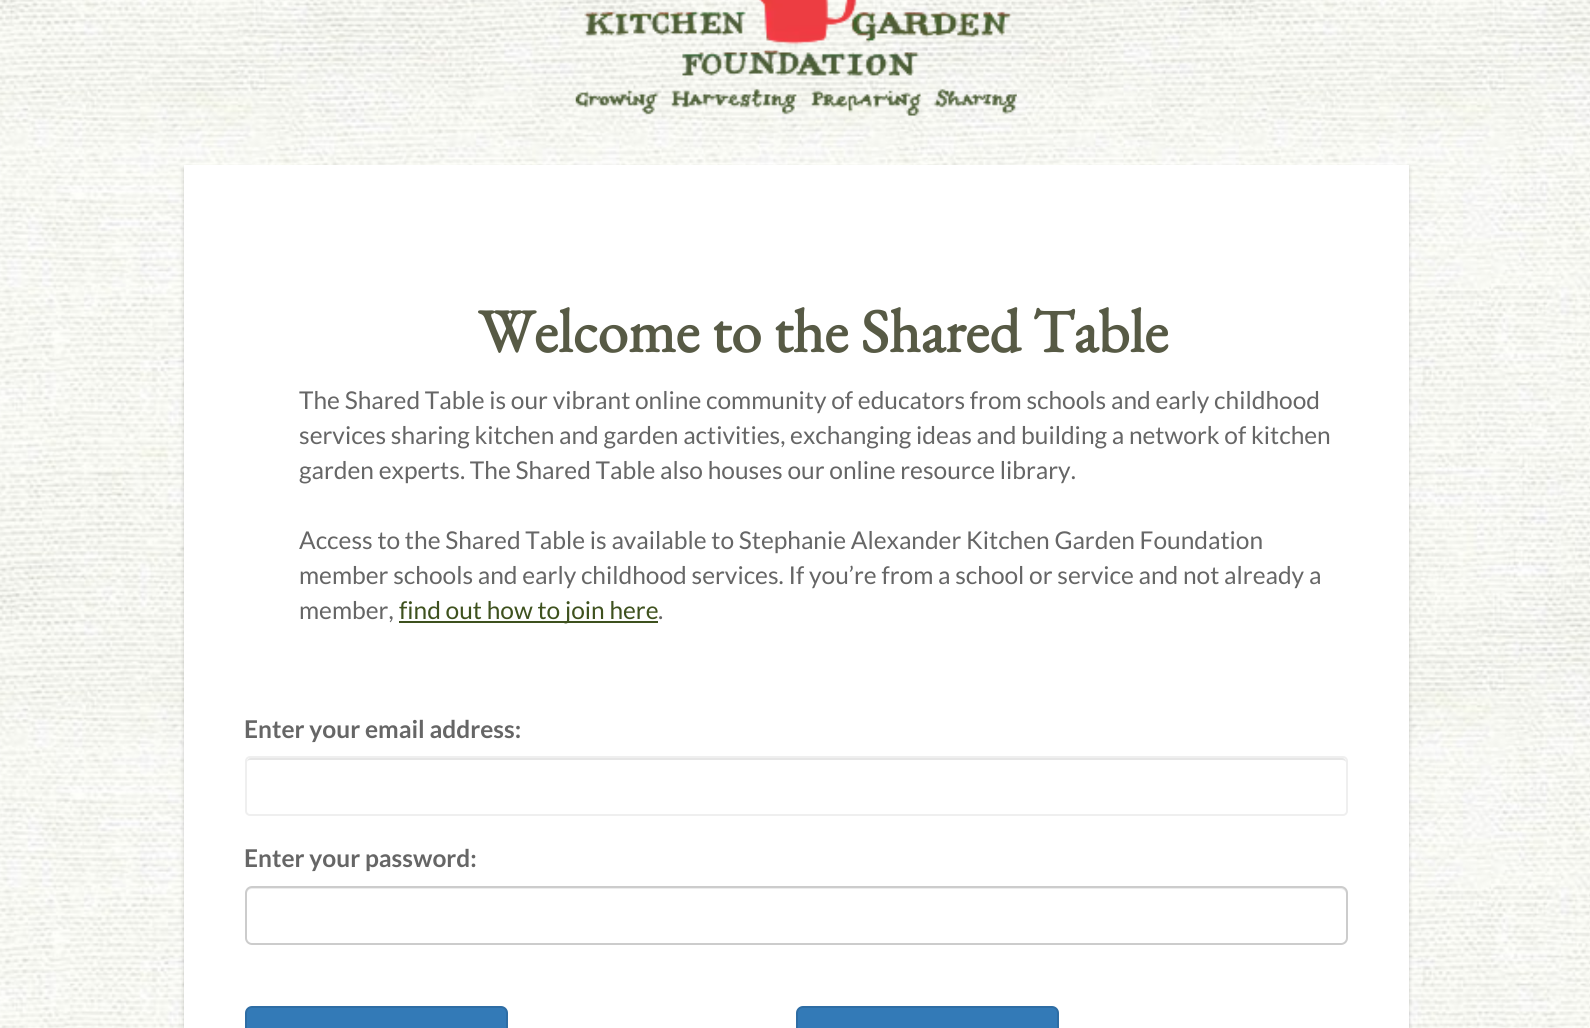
#include <cairo.h>
#include <math.h>
#include <stddef.h>

typedef struct { double x, y; const char *s; } line_t;

static void ink(cairo_t *ctx, unsigned color) {
    cairo_set_source_rgb(ctx, (color >> 16) / 255.0, (color >> 8 & 255) / 255.0, (color & 255) / 255.0);
}

static void round_path(cairo_t *ctx, double x, double y, double w, double h, double r) {
    cairo_new_sub_path(ctx);
    cairo_arc(ctx, x + w - r, y + h - r, r, 0, M_PI / 2);
    cairo_arc(ctx, x + r, y + h - r, r, M_PI / 2, M_PI);
    cairo_arc(ctx, x + r, y + r, r, M_PI, 1.5 * M_PI);
    cairo_arc(ctx, x + w - r, y + r, r, 1.5 * M_PI, 2 * M_PI);
    cairo_close_path(ctx);
}

static void blur_box(cairo_t *ctx, double x, double y, double w, double h, double r, double blur, double alpha) {
    cairo_push_group_with_content(ctx, CAIRO_CONTENT_ALPHA);
    cairo_set_operator(ctx, CAIRO_OPERATOR_SOURCE);
    for (int i = 15; i >= -15 && fmin(w, h) + blur * i / 3 > 0; i -= 2) {
        double e = blur * i / 6;
        cairo_set_source_rgba(ctx, 0, 0, 0, alpha * erfc((i - 1) / 8.5) / 2);
        round_path(ctx, x - e, y - e, w + 2 * e, h + 2 * e, fmax(0, fmin(r + e + blur * .6, fmin(w, h) / 2 + e)));
        cairo_fill(ctx);
    }
    cairo_pattern_t *soft = cairo_pop_group(ctx);
    cairo_mask(ctx, soft);
    cairo_pattern_destroy(soft);
}

static void paste(cairo_t *ctx, const char *path, double x, double y, double w, double h) {
    cairo_surface_t *image = cairo_image_surface_create_from_png(path);
    cairo_save(ctx);
    cairo_set_source_surface(ctx, image, x, y);
    cairo_rectangle(ctx, x, y, w, h);
    cairo_fill(ctx);
    cairo_restore(ctx);
    cairo_surface_destroy(image);
}

int main(void) {
    cairo_surface_t *surface = cairo_image_surface_create(CAIRO_FORMAT_RGB24, 1590, 1028);
    cairo_t *ctx = cairo_create(surface);
    cairo_font_options_t *options = cairo_font_options_create();
    cairo_font_options_set_hint_metrics(options, CAIRO_HINT_METRICS_OFF);
    cairo_font_options_set_hint_style(options, CAIRO_HINT_STYLE_NONE);
    cairo_set_font_options(ctx, options);
    cairo_set_miter_limit(ctx, 4);
    ink(ctx, 0xFFFFFF);
    cairo_paint(ctx);
    paste(ctx, "media/1.png", 0, 0, 1590, 1028);
    paste(ctx, "media/2.png", 575, 0, 442, 116);
    ink(ctx, 0x000000);
    blur_box(ctx, 184, 168, 1225, 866, 0, 2, 0.2);
    ink(ctx, 0xFFFFFF);
    cairo_rectangle(ctx, 184, 165, 1225, 863);
    cairo_fill(ctx);
    cairo_select_font_face(ctx, "EB Garamond", CAIRO_FONT_SLANT_NORMAL, CAIRO_FONT_WEIGHT_BOLD);
    cairo_set_font_size(ctx, 61.25);
    ink(ctx, 0x575A45);
    cairo_move_to(ctx, 478, 352);
    cairo_show_text(ctx, "Welcome to the Shared Table");
    cairo_select_font_face(ctx, "Lato", CAIRO_FONT_SLANT_NORMAL, CAIRO_FONT_WEIGHT_NORMAL);
    cairo_set_font_size(ctx, 24.5);
    ink(ctx, 0x666666);
    {
        static const line_t items[] = {
            {299, 409, "The Shared Table is our vibrant online community of educators from schools and early childhood"},
            {299, 444, "services sharing kitchen and garden activities, exchanging ideas and building a network of kitchen"},
            {299, 479, "garden experts. The Shared Table also houses our online resource library."},
            {299, 549, "Access to the Shared Table is available to Stephanie Alexander Kitchen Garden Foundation"},
            {299, 584, "member schools and early childhood services. If you’re from a school or service and not already a"},
            {299, 619, "member,"},
        };
        for (size_t i = 0; i < sizeof items / sizeof *items; i++) {
            cairo_move_to(ctx, items[i].x, items[i].y);
            cairo_show_text(ctx, items[i].s);
        }
    }
    ink(ctx, 0x3E511E);
    cairo_rectangle(ctx, 399, 621, 259, 2);
    cairo_fill(ctx);
    cairo_move_to(ctx, 399, 619);
    cairo_show_text(ctx, "find out how to join here");
    ink(ctx, 0x666666);
    cairo_move_to(ctx, 658, 619);
    cairo_show_text(ctx, ".");
    cairo_select_font_face(ctx, "Lato", CAIRO_FONT_SLANT_NORMAL, CAIRO_FONT_WEIGHT_BOLD);
    cairo_move_to(ctx, 244, 738);
    cairo_show_text(ctx, "Enter your email address:");
    ink(ctx, 0xE6E6E6);
    cairo_new_path(ctx);
    cairo_move_to(ctx, 250, 760);
    cairo_line_to(ctx, 1342, 760);
    cairo_curve_to(ctx, 1344, 760, 1346, 761, 1346, 763);
    cairo_curve_to(ctx, 1346, 760, 1345, 758, 1342, 758);
    cairo_line_to(ctx, 251, 758);
    cairo_curve_to(ctx, 248, 758, 247, 760, 247, 763);
    cairo_curve_to(ctx, 247, 761, 248, 760, 250, 760);
    cairo_close_path(ctx);
    cairo_fill(ctx);
    round_path(ctx, 246, 757, 1101, 58, 4);
    ink(ctx, 0xEFEFEF);
    cairo_stroke(ctx);
    ink(ctx, 0x666666);
    cairo_move_to(ctx, 244, 867);
    cairo_show_text(ctx, "Enter your password:");
    ink(ctx, 0xECECEC);
    cairo_new_path(ctx);
    cairo_move_to(ctx, 252, 889);
    cairo_line_to(ctx, 1340, 889);
    cairo_curve_to(ctx, 1343, 889, 1346, 891, 1346, 894);
    cairo_line_to(ctx, 1346, 892);
    cairo_curve_to(ctx, 1346, 889, 1344, 887, 1341, 887);
    cairo_line_to(ctx, 252, 887);
    cairo_curve_to(ctx, 249, 887, 247, 889, 247, 892);
    cairo_line_to(ctx, 247, 894);
    cairo_curve_to(ctx, 247, 891, 249, 889, 252, 889);
    cairo_close_path(ctx);
    cairo_fill(ctx);
    round_path(ctx, 246, 887, 1101, 57, 6);
    ink(ctx, 0xCCCCCC);
    cairo_stroke(ctx);
    ink(ctx, 0x337AB7);
    round_path(ctx, 246, 1007, 261, 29, 6);
    cairo_fill_preserve(ctx);
    ink(ctx, 0x2E6DA4);
    cairo_stroke(ctx);
    ink(ctx, 0x337AB7);
    round_path(ctx, 797, 1007, 261, 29, 6);
    cairo_fill_preserve(ctx);
    ink(ctx, 0x2E6DA4);
    cairo_stroke(ctx);
    cairo_surface_write_to_png(surface, "image.png");
    cairo_font_options_destroy(options);
    cairo_destroy(ctx);
    cairo_surface_destroy(surface);
    return 0;
}
